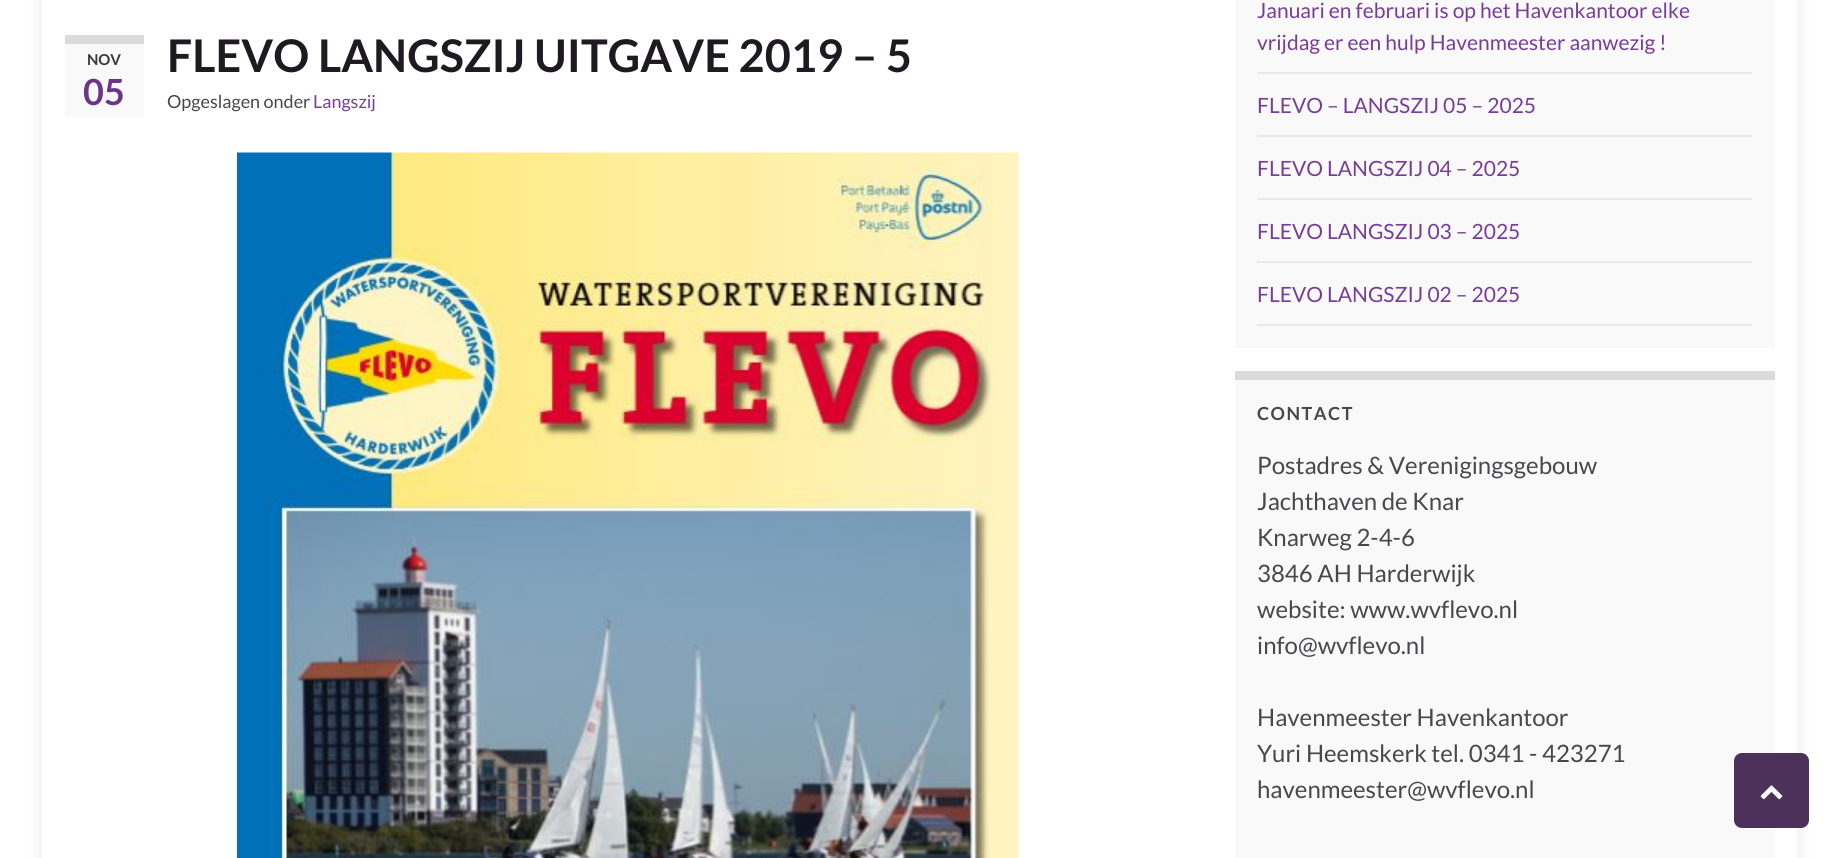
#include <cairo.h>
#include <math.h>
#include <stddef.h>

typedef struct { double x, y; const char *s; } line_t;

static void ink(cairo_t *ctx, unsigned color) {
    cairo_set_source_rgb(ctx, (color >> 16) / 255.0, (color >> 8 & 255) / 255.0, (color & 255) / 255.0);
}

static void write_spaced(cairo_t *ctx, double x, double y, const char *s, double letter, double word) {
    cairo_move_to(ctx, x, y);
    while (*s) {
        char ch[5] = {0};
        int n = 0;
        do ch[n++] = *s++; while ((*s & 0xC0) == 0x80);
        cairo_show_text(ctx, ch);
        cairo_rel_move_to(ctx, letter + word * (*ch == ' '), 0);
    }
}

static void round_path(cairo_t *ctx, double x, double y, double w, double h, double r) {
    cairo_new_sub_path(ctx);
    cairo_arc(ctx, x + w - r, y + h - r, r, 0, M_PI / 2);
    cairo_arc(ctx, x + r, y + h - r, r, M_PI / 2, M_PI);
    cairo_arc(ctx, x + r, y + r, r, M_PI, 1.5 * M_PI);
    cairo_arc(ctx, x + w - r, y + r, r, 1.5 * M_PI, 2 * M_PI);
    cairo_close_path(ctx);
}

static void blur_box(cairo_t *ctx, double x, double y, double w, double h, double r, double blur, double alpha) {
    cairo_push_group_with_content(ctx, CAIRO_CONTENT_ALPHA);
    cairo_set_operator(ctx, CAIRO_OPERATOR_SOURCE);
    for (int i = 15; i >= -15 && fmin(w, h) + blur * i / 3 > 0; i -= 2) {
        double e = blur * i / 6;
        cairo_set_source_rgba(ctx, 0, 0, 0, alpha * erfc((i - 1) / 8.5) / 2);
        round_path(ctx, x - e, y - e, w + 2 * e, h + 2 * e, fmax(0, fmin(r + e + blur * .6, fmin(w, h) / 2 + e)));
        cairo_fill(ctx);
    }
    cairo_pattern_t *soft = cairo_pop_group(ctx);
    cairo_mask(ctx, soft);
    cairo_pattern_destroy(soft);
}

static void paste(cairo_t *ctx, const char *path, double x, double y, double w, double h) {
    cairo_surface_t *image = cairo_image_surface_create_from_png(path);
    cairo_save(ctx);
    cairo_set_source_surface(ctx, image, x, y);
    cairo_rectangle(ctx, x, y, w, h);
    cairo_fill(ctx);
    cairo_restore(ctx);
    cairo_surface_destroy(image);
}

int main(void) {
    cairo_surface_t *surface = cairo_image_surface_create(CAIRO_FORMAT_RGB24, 1839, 858);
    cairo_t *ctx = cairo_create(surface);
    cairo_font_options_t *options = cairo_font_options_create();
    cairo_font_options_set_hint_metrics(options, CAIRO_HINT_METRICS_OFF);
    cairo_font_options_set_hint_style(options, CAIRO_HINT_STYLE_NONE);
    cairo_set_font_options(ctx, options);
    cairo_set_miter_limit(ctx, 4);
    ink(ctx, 0xFFFFFF);
    cairo_paint(ctx);
    cairo_save(ctx);
    cairo_set_fill_rule(ctx, CAIRO_FILL_RULE_EVEN_ODD);
    cairo_new_path(ctx);
    cairo_move_to(ctx, 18, 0);
    cairo_line_to(ctx, 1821, 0);
    cairo_line_to(ctx, 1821, 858);
    cairo_line_to(ctx, 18, 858);
    cairo_close_path(ctx);
    cairo_move_to(ctx, 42, -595);
    cairo_line_to(ctx, 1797, -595);
    cairo_line_to(ctx, 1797, 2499);
    cairo_line_to(ctx, 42, 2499);
    cairo_close_path(ctx);
    cairo_clip(ctx);
    ink(ctx, 0x000000);
    blur_box(ctx, 42, -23, 1755, 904, 0, 7.5, 0.1);
    cairo_restore(ctx);
    ink(ctx, 0xF9F9F9);
    cairo_rectangle(ctx, 65, 44, 79, 73);
    cairo_fill(ctx);
    ink(ctx, 0xDBDBDB);
    cairo_rectangle(ctx, 65, 35, 79, 9);
    cairo_fill(ctx);
    cairo_select_font_face(ctx, "Lato", CAIRO_FONT_SLANT_NORMAL, CAIRO_FONT_WEIGHT_BOLD);
    cairo_set_font_size(ctx, 15);
    ink(ctx, 0x3B383D);
    cairo_move_to(ctx, 87, 65);
    cairo_show_text(ctx, "NOV");
    cairo_set_font_size(ctx, 36);
    ink(ctx, 0x6B3589);
    cairo_move_to(ctx, 83, 105);
    cairo_show_text(ctx, "05");
    cairo_set_font_size(ctx, 45);
    ink(ctx, 0x1F1A22);
    cairo_move_to(ctx, 167, 72);
    cairo_show_text(ctx, "FLEVO LANGSZIJ UITGAVE 2019 – 5");
    cairo_select_font_face(ctx, "Lato", CAIRO_FONT_SLANT_NORMAL, CAIRO_FONT_WEIGHT_NORMAL);
    cairo_set_font_size(ctx, 18);
    ink(ctx, 0x4A474B);
    cairo_move_to(ctx, 167, 108);
    cairo_show_text(ctx, "Opgeslagen onder");
    ink(ctx, 0x783D98);
    cairo_move_to(ctx, 313, 108);
    cairo_show_text(ctx, "Langszij");
    paste(ctx, "media/1.png", 237, 152, 782, 706);
    ink(ctx, 0xF9F9F9);
    cairo_rectangle(ctx, 1235, 0, 540, 348);
    cairo_fill(ctx);
    ink(ctx, 0xE9E9E9);
    cairo_rectangle(ctx, 1257, 72, 495, 2);
    cairo_fill(ctx);
    cairo_set_font_size(ctx, 21);
    ink(ctx, 0x783D98);
    cairo_move_to(ctx, 1257, 18);
    cairo_show_text(ctx, "Januari en februari is op het Havenkantoor elke");
    cairo_move_to(ctx, 1257, 50);
    cairo_show_text(ctx, "vrijdag er een hulp Havenmeester aanwezig !");
    ink(ctx, 0xE9E9E9);
    cairo_rectangle(ctx, 1257, 135, 495, 2);
    cairo_fill(ctx);
    ink(ctx, 0x783D98);
    cairo_move_to(ctx, 1257, 113);
    cairo_show_text(ctx, "FLEVO – LANGSZIJ 05 – 2025");
    ink(ctx, 0xE9E9E9);
    cairo_rectangle(ctx, 1257, 198, 495, 2);
    cairo_fill(ctx);
    ink(ctx, 0x783D98);
    cairo_move_to(ctx, 1257, 176);
    cairo_show_text(ctx, "FLEVO LANGSZIJ 04 – 2025");
    ink(ctx, 0xE9E9E9);
    cairo_rectangle(ctx, 1257, 261, 495, 2);
    cairo_fill(ctx);
    ink(ctx, 0x783D98);
    cairo_move_to(ctx, 1257, 239);
    cairo_show_text(ctx, "FLEVO LANGSZIJ 03 – 2025");
    ink(ctx, 0xE9E9E9);
    cairo_rectangle(ctx, 1257, 324, 495, 2);
    cairo_fill(ctx);
    ink(ctx, 0x783D98);
    cairo_move_to(ctx, 1257, 302);
    cairo_show_text(ctx, "FLEVO LANGSZIJ 02 – 2025");
    ink(ctx, 0xF9F9F9);
    cairo_rectangle(ctx, 1235, 380, 540, 478);
    cairo_fill(ctx);
    ink(ctx, 0xDBDBDB);
    cairo_rectangle(ctx, 1235, 371, 540, 9);
    cairo_fill(ctx);
    cairo_select_font_face(ctx, "Lato", CAIRO_FONT_SLANT_NORMAL, CAIRO_FONT_WEIGHT_BOLD);
    cairo_set_font_size(ctx, 18);
    ink(ctx, 0x4A474B);
    write_spaced(ctx, 1257, 420, "CONTACT", 1.5, 0);
    cairo_select_font_face(ctx, "Lato", CAIRO_FONT_SLANT_NORMAL, CAIRO_FONT_WEIGHT_NORMAL);
    cairo_set_font_size(ctx, 24);
    {
        static const line_t items[] = {
            {1257, 474, "Postadres & Verenigingsgebouw"},
            {1257, 510, "Jachthaven de Knar"},
            {1257, 546, "Knarweg 2-4-6"},
            {1257, 582, "3846 AH Harderwijk"},
            {1257, 618, "website: www.wvflevo.nl"},
            {1257, 654, "info@wvflevo.nl"},
            {1257, 726, "Havenmeester Havenkantoor"},
            {1257, 762, "Yuri Heemskerk tel. 0341 - 423271"},
            {1257, 798, "havenmeester@wvflevo.nl"},
        };
        for (size_t i = 0; i < sizeof items / sizeof *items; i++) {
            cairo_move_to(ctx, items[i].x, items[i].y);
            cairo_show_text(ctx, items[i].s);
        }
    }
    ink(ctx, 0x4C315A);
    round_path(ctx, 1734, 753, 75, 75, 8);
    cairo_fill(ctx);
    paste(ctx, "media/2.png", 1760, 785, 23, 15);
    cairo_surface_write_to_png(surface, "image.png");
    cairo_font_options_destroy(options);
    cairo_destroy(ctx);
    cairo_surface_destroy(surface);
    return 0;
}
